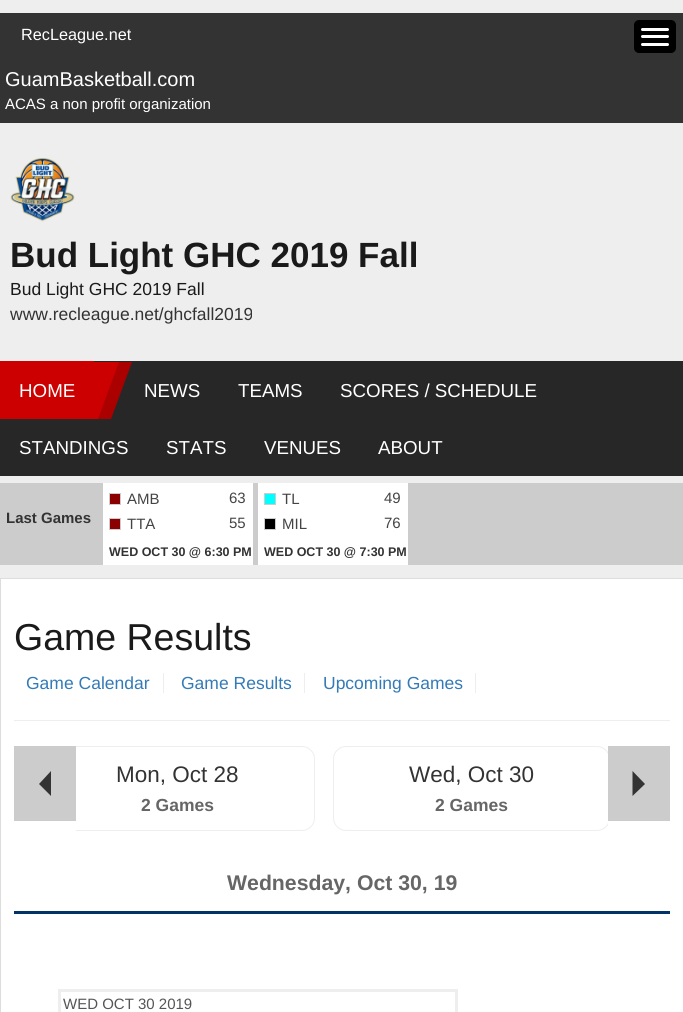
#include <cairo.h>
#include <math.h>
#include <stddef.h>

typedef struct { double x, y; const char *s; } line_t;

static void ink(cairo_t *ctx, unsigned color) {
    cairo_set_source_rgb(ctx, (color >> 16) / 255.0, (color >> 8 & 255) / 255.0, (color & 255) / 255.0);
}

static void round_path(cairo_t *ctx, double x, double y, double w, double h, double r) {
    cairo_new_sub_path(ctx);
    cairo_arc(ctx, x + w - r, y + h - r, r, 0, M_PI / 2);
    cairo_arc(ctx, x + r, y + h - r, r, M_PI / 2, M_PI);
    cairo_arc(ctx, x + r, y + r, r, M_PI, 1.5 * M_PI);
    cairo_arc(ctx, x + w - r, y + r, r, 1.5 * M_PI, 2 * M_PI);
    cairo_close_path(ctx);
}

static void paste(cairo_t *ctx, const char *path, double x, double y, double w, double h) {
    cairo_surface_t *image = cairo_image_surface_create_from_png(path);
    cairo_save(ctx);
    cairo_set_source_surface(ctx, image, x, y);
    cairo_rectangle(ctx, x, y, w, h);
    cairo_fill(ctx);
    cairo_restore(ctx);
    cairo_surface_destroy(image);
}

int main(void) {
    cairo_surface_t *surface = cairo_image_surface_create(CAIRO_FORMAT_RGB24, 683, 1012);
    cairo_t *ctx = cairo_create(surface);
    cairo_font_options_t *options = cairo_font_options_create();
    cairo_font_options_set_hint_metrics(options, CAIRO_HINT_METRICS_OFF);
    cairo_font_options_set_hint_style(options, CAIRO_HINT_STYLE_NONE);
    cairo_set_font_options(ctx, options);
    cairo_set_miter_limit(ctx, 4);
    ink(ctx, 0xEEEEEE);
    cairo_paint(ctx);
    ink(ctx, 0x333333);
    cairo_rectangle(ctx, 0, 13, 683, 110);
    cairo_fill(ctx);
    cairo_select_font_face(ctx, "Liberation Sans", CAIRO_FONT_SLANT_NORMAL, CAIRO_FONT_WEIGHT_NORMAL);
    cairo_set_font_size(ctx, 16.25);
    ink(ctx, 0xFFFFFF);
    cairo_move_to(ctx, 21, 40);
    cairo_show_text(ctx, "RecLeague.net");
    ink(ctx, 0x000000);
    round_path(ctx, 634, 20, 42, 33, 5);
    cairo_fill(ctx);
    ink(ctx, 0xFFFFFF);
    round_path(ctx, 641, 28, 28, 3, 1.5);
    cairo_fill(ctx);
    round_path(ctx, 641, 35, 28, 3, 1.5);
    cairo_fill(ctx);
    round_path(ctx, 641, 43, 28, 3, 1.5);
    cairo_fill(ctx);
    cairo_set_font_size(ctx, 20);
    cairo_move_to(ctx, 5, 86);
    cairo_show_text(ctx, "GuamBasketball.com");
    cairo_set_font_size(ctx, 15);
    cairo_move_to(ctx, 5, 109);
    cairo_show_text(ctx, "ACAS a non profit organization");
    paste(ctx, "media/1.png", 10, 157, 65, 65);
    cairo_select_font_face(ctx, "Liberation Sans", CAIRO_FONT_SLANT_NORMAL, CAIRO_FONT_WEIGHT_BOLD);
    cairo_set_font_size(ctx, 35);
    ink(ctx, 0x1A1A1A);
    cairo_move_to(ctx, 10, 267);
    cairo_show_text(ctx, "Bud Light GHC 2019 Fall");
    cairo_select_font_face(ctx, "Liberation Sans", CAIRO_FONT_SLANT_NORMAL, CAIRO_FONT_WEIGHT_NORMAL);
    cairo_set_font_size(ctx, 17.5);
    cairo_move_to(ctx, 10, 295);
    cairo_show_text(ctx, "Bud Light GHC 2019 Fall");
    ink(ctx, 0x333333);
    cairo_move_to(ctx, 10, 320);
    cairo_show_text(ctx, "www.recleague.net/ghcfall2019");
    ink(ctx, 0x272727);
    cairo_rectangle(ctx, 0, 361, 683, 115);
    cairo_fill(ctx);
    ink(ctx, 0xAA0000);
    cairo_new_path(ctx);
    cairo_move_to(ctx, 38, 362);
    cairo_line_to(ctx, 132, 362);
    cairo_line_to(ctx, 111, 419);
    cairo_line_to(ctx, 17, 419);
    cairo_close_path(ctx);
    cairo_fill(ctx);
    ink(ctx, 0xCC0000);
    cairo_new_path(ctx);
    cairo_move_to(ctx, 38, 362);
    cairo_line_to(ctx, 119, 362);
    cairo_line_to(ctx, 98, 419);
    cairo_line_to(ctx, 17, 419);
    cairo_close_path(ctx);
    cairo_fill(ctx);
    cairo_rectangle(ctx, 0, 361, 94, 58);
    cairo_fill(ctx);
    cairo_set_font_size(ctx, 18.75);
    ink(ctx, 0xFFFFFF);
    {
        static const line_t items[] = {
            {19, 397, "HOME"},
            {144, 397, "NEWS"},
            {238, 397, "TEAMS"},
            {340, 397, "SCORES / SCHEDULE"},
            {19, 454, "STANDINGS"},
            {166, 454, "STATS"},
            {264, 454, "VENUES"},
            {378, 454, "ABOUT"},
        };
        for (size_t i = 0; i < sizeof items / sizeof *items; i++) {
            cairo_move_to(ctx, items[i].x, items[i].y);
            cairo_show_text(ctx, items[i].s);
        }
    }
    ink(ctx, 0xCCCCCC);
    cairo_rectangle(ctx, 0, 483, 683, 82);
    cairo_fill(ctx);
    cairo_select_font_face(ctx, "Liberation Sans", CAIRO_FONT_SLANT_NORMAL, CAIRO_FONT_WEIGHT_BOLD);
    cairo_set_font_size(ctx, 15);
    ink(ctx, 0x333333);
    cairo_move_to(ctx, 6, 523);
    cairo_show_text(ctx, "Last Games");
    ink(ctx, 0xFFFFFF);
    cairo_rectangle(ctx, 103, 483, 150, 82);
    cairo_fill(ctx);
    ink(ctx, 0x8B0000);
    cairo_rectangle(ctx, 109.5, 493.5, 11, 11);
    cairo_fill_preserve(ctx);
    ink(ctx, 0xCCCCCC);
    cairo_set_line_width(ctx, 1);
    cairo_stroke(ctx);
    cairo_select_font_face(ctx, "Liberation Sans", CAIRO_FONT_SLANT_NORMAL, CAIRO_FONT_WEIGHT_NORMAL);
    ink(ctx, 0x444444);
    cairo_move_to(ctx, 127, 504);
    cairo_show_text(ctx, "AMB");
    cairo_move_to(ctx, 229, 503);
    cairo_show_text(ctx, "63");
    ink(ctx, 0x8B0000);
    cairo_rectangle(ctx, 109.5, 518.5, 11, 11);
    cairo_fill_preserve(ctx);
    ink(ctx, 0xCCCCCC);
    cairo_stroke(ctx);
    ink(ctx, 0x444444);
    cairo_move_to(ctx, 127, 529);
    cairo_show_text(ctx, "TTA");
    cairo_move_to(ctx, 229, 528);
    cairo_show_text(ctx, "55");
    cairo_select_font_face(ctx, "Liberation Sans", CAIRO_FONT_SLANT_NORMAL, CAIRO_FONT_WEIGHT_BOLD);
    cairo_set_font_size(ctx, 12.5);
    ink(ctx, 0x333333);
    cairo_move_to(ctx, 109, 556);
    cairo_show_text(ctx, "WED OCT 30 @ 6:30 PM");
    ink(ctx, 0xFFFFFF);
    cairo_rectangle(ctx, 258, 483, 150, 82);
    cairo_fill(ctx);
    ink(ctx, 0x00FFFF);
    cairo_rectangle(ctx, 264.5, 493.5, 11, 11);
    cairo_fill_preserve(ctx);
    ink(ctx, 0xCCCCCC);
    cairo_stroke(ctx);
    cairo_select_font_face(ctx, "Liberation Sans", CAIRO_FONT_SLANT_NORMAL, CAIRO_FONT_WEIGHT_NORMAL);
    cairo_set_font_size(ctx, 15);
    ink(ctx, 0x444444);
    cairo_move_to(ctx, 282, 504);
    cairo_show_text(ctx, "TL");
    cairo_move_to(ctx, 384, 503);
    cairo_show_text(ctx, "49");
    ink(ctx, 0x000000);
    cairo_rectangle(ctx, 264.5, 518.5, 11, 11);
    cairo_fill_preserve(ctx);
    ink(ctx, 0xCCCCCC);
    cairo_stroke(ctx);
    ink(ctx, 0x444444);
    cairo_move_to(ctx, 282, 529);
    cairo_show_text(ctx, "MIL");
    cairo_move_to(ctx, 384, 528);
    cairo_show_text(ctx, "76");
    cairo_select_font_face(ctx, "Liberation Sans", CAIRO_FONT_SLANT_NORMAL, CAIRO_FONT_WEIGHT_BOLD);
    cairo_set_font_size(ctx, 12.5);
    ink(ctx, 0x333333);
    cairo_move_to(ctx, 264, 556);
    cairo_show_text(ctx, "WED OCT 30 @ 7:30 PM");
    ink(ctx, 0xFFFFFF);
    cairo_rectangle(ctx, 0.5, 578.5, 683, 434);
    cairo_fill_preserve(ctx);
    ink(ctx, 0xDDDDDD);
    cairo_stroke(ctx);
    cairo_select_font_face(ctx, "Liberation Sans", CAIRO_FONT_SLANT_NORMAL, CAIRO_FONT_WEIGHT_NORMAL);
    cairo_set_font_size(ctx, 37.5);
    ink(ctx, 0x1A1A1A);
    cairo_move_to(ctx, 14, 650);
    cairo_show_text(ctx, "Game Results");
    cairo_set_font_size(ctx, 17.5);
    ink(ctx, 0x337AB7);
    cairo_move_to(ctx, 26, 689);
    cairo_show_text(ctx, "Game Calendar");
    ink(ctx, 0xEEEEEE);
    cairo_rectangle(ctx, 163, 673, 1, 20);
    cairo_fill(ctx);
    ink(ctx, 0x337AB7);
    cairo_move_to(ctx, 181, 689);
    cairo_show_text(ctx, "Game Results");
    ink(ctx, 0xEEEEEE);
    cairo_rectangle(ctx, 304, 673, 1, 20);
    cairo_fill(ctx);
    ink(ctx, 0x337AB7);
    cairo_move_to(ctx, 323, 689);
    cairo_show_text(ctx, "Upcoming Games");
    ink(ctx, 0xEEEEEE);
    cairo_rectangle(ctx, 475, 673, 1, 20);
    cairo_fill(ctx);
    cairo_rectangle(ctx, 14, 720, 656, 1);
    cairo_fill(ctx);
    cairo_save(ctx);
    cairo_rectangle(ctx, 76, 746, 532, 85);
    cairo_clip(ctx);
    round_path(ctx, 40.5, 746.5, 274, 84, 12.5);
    cairo_stroke(ctx);
    cairo_restore(ctx);
    ink(ctx, 0xCCCCCC);
    cairo_rectangle(ctx, 14, 746, 62, 75);
    cairo_fill(ctx);
    ink(ctx, 0x333333);
    cairo_new_path(ctx);
    cairo_move_to(ctx, 51, 771);
    cairo_line_to(ctx, 51, 796);
    cairo_line_to(ctx, 39, 784);
    cairo_close_path(ctx);
    cairo_fill(ctx);
    cairo_set_font_size(ctx, 22.5);
    cairo_move_to(ctx, 116, 782);
    cairo_show_text(ctx, "Mon, Oct 28");
    cairo_select_font_face(ctx, "Liberation Sans", CAIRO_FONT_SLANT_NORMAL, CAIRO_FONT_WEIGHT_BOLD);
    cairo_set_font_size(ctx, 17.5);
    ink(ctx, 0x666666);
    cairo_move_to(ctx, 141, 811);
    cairo_show_text(ctx, "2 Games");
    cairo_save(ctx);
    cairo_rectangle(ctx, 76, 746, 532, 85);
    cairo_clip(ctx);
    round_path(ctx, 333.5, 746.5, 276, 84, 12.5);
    ink(ctx, 0xEEEEEE);
    cairo_stroke(ctx);
    cairo_restore(ctx);
    cairo_select_font_face(ctx, "Liberation Sans", CAIRO_FONT_SLANT_NORMAL, CAIRO_FONT_WEIGHT_NORMAL);
    cairo_set_font_size(ctx, 22.5);
    ink(ctx, 0x333333);
    cairo_move_to(ctx, 409, 782);
    cairo_show_text(ctx, "Wed, Oct 30");
    cairo_select_font_face(ctx, "Liberation Sans", CAIRO_FONT_SLANT_NORMAL, CAIRO_FONT_WEIGHT_BOLD);
    cairo_set_font_size(ctx, 17.5);
    ink(ctx, 0x666666);
    cairo_move_to(ctx, 435, 811);
    cairo_show_text(ctx, "2 Games");
    ink(ctx, 0xCCCCCC);
    cairo_rectangle(ctx, 608, 746, 62, 75);
    cairo_fill(ctx);
    ink(ctx, 0x333333);
    cairo_new_path(ctx);
    cairo_move_to(ctx, 632.5, 796);
    cairo_line_to(ctx, 632.5, 771);
    cairo_line_to(ctx, 645, 784);
    cairo_close_path(ctx);
    cairo_fill(ctx);
    ink(ctx, 0x013369);
    cairo_rectangle(ctx, 14, 911, 656, 3);
    cairo_fill(ctx);
    cairo_set_font_size(ctx, 21.25);
    ink(ctx, 0x666666);
    cairo_move_to(ctx, 227, 890);
    cairo_show_text(ctx, "Wednesday, Oct 30, 19");
    cairo_rectangle(ctx, 59.5, 990.5, 397, 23);
    ink(ctx, 0xEEEEEE);
    cairo_set_line_width(ctx, 3);
    cairo_stroke(ctx);
    cairo_select_font_face(ctx, "Liberation Sans", CAIRO_FONT_SLANT_NORMAL, CAIRO_FONT_WEIGHT_NORMAL);
    cairo_set_font_size(ctx, 15);
    ink(ctx, 0x555555);
    cairo_move_to(ctx, 63, 1009);
    cairo_show_text(ctx, "WED OCT 30 2019");
    cairo_surface_write_to_png(surface, "image.png");
    cairo_font_options_destroy(options);
    cairo_destroy(ctx);
    cairo_surface_destroy(surface);
    return 0;
}
